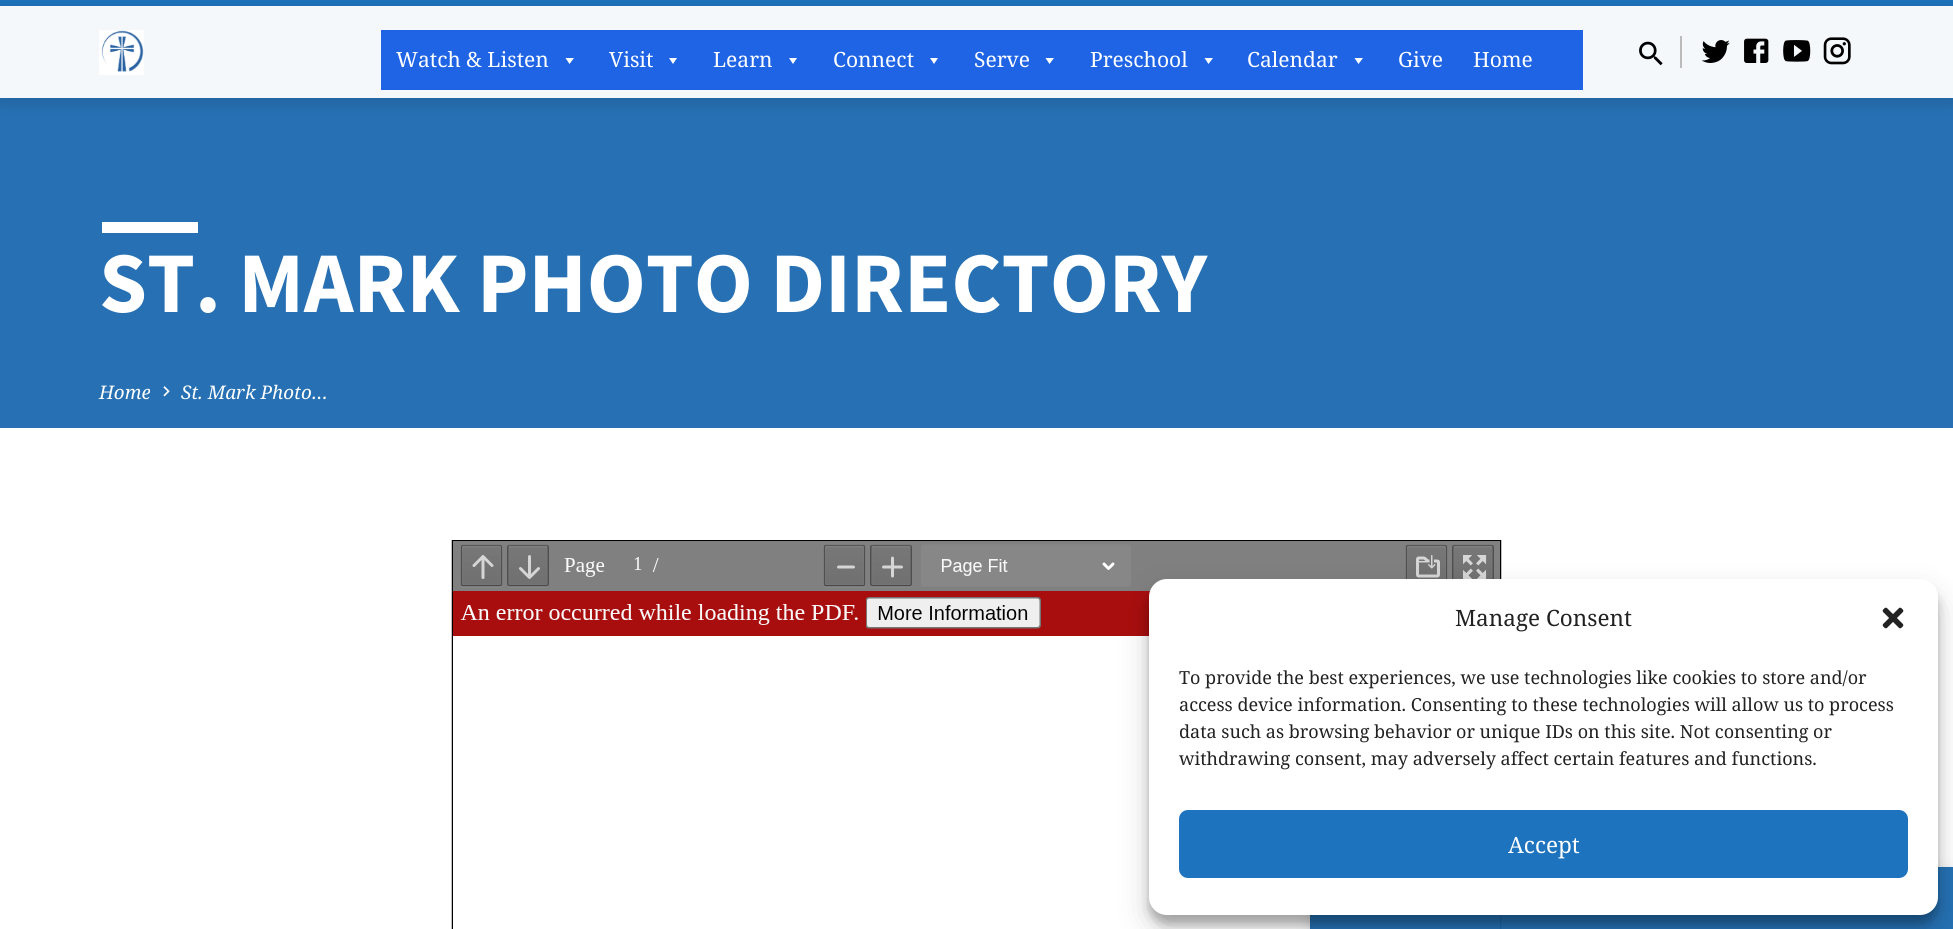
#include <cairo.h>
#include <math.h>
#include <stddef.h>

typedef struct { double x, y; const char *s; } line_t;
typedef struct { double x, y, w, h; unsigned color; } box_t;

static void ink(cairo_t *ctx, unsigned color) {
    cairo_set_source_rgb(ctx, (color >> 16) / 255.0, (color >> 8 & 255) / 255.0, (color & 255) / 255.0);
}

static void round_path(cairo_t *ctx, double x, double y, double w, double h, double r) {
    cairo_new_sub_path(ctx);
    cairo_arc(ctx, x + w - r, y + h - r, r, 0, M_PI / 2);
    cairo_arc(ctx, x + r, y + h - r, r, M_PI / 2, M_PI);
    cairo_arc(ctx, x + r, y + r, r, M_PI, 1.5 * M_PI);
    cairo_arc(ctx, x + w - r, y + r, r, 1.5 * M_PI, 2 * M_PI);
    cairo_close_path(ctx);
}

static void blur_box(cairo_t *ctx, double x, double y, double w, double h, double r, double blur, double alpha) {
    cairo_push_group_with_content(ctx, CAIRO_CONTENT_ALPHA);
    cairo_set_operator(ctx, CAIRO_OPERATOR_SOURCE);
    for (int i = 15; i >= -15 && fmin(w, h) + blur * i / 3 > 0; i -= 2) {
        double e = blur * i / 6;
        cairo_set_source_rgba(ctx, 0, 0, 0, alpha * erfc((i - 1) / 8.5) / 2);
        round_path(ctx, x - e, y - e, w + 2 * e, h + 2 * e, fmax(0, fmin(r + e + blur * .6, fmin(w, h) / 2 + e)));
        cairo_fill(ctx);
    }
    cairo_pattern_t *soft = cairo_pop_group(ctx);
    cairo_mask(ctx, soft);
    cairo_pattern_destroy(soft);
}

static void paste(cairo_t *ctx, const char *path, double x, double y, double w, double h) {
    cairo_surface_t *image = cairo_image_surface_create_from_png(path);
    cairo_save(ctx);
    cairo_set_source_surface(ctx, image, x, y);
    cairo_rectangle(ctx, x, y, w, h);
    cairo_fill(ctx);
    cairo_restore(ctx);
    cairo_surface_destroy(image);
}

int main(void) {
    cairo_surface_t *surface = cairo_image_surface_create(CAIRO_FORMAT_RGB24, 1953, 929);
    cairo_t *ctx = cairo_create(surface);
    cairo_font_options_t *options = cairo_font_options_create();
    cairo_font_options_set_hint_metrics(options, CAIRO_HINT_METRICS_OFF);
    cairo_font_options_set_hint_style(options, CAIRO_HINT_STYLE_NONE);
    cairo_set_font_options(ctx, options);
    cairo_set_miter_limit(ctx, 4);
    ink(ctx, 0xFFFFFF);
    cairo_paint(ctx);
    {
        static const box_t items[] = {
            {0, 0, 1953, 6, 0x1E73BD},
            {0, 6, 1953, 92, 0xF4F8FB},
            {0, 98, 1953, 330, 0x2670B3},
        };
        for (size_t i = 0; i < sizeof items / sizeof *items; i++) {
            ink(ctx, items[i].color);
            cairo_rectangle(ctx, items[i].x, items[i].y, items[i].w, items[i].h);
            cairo_fill(ctx);
        }
    }
    cairo_save(ctx);
    cairo_set_fill_rule(ctx, CAIRO_FILL_RULE_EVEN_ODD);
    cairo_new_path(ctx);
    cairo_move_to(ctx, 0, 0);
    cairo_line_to(ctx, 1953, 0);
    cairo_line_to(ctx, 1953, 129);
    cairo_line_to(ctx, 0, 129);
    cairo_close_path(ctx);
    cairo_move_to(ctx, 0, 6);
    cairo_line_to(ctx, 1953, 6);
    cairo_line_to(ctx, 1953, 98);
    cairo_line_to(ctx, 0, 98);
    cairo_close_path(ctx);
    cairo_clip(ctx);
    ink(ctx, 0x000000);
    blur_box(ctx, 0, 9, 1953, 92, 0, 9, 0.14);
    cairo_restore(ctx);
    paste(ctx, "media/1.png", 99, 30, 45, 45);
    ink(ctx, 0x1E64E4);
    cairo_rectangle(ctx, 381, 30, 1202, 60);
    cairo_fill(ctx);
    cairo_select_font_face(ctx, "Noto Serif", CAIRO_FONT_SLANT_NORMAL, CAIRO_FONT_WEIGHT_NORMAL);
    cairo_set_font_size(ctx, 21);
    ink(ctx, 0xFFFFFF);
    cairo_move_to(ctx, 396, 67);
    cairo_show_text(ctx, "Watch & Listen");
    cairo_new_path(ctx);
    cairo_move_to(ctx, 574, 58);
    cairo_line_to(ctx, 569.5, 64);
    cairo_line_to(ctx, 565.5, 58);
    cairo_close_path(ctx);
    cairo_fill(ctx);
    cairo_move_to(ctx, 609, 67);
    cairo_show_text(ctx, "Visit");
    cairo_new_path(ctx);
    cairo_move_to(ctx, 677, 58);
    cairo_line_to(ctx, 673, 64);
    cairo_line_to(ctx, 669, 58);
    cairo_close_path(ctx);
    cairo_fill(ctx);
    cairo_move_to(ctx, 713, 67);
    cairo_show_text(ctx, "Learn");
    cairo_new_path(ctx);
    cairo_move_to(ctx, 797, 58);
    cairo_line_to(ctx, 793, 64);
    cairo_line_to(ctx, 789, 58);
    cairo_close_path(ctx);
    cairo_fill(ctx);
    cairo_move_to(ctx, 833, 67);
    cairo_show_text(ctx, "Connect");
    cairo_new_path(ctx);
    cairo_move_to(ctx, 938, 58);
    cairo_line_to(ctx, 934, 64);
    cairo_line_to(ctx, 930, 58);
    cairo_close_path(ctx);
    cairo_fill(ctx);
    cairo_move_to(ctx, 974, 67);
    cairo_show_text(ctx, "Serve");
    cairo_new_path(ctx);
    cairo_move_to(ctx, 1054, 58);
    cairo_line_to(ctx, 1049.5, 64);
    cairo_line_to(ctx, 1045.5, 58);
    cairo_close_path(ctx);
    cairo_fill(ctx);
    cairo_move_to(ctx, 1090, 67);
    cairo_show_text(ctx, "Preschool");
    cairo_new_path(ctx);
    cairo_move_to(ctx, 1213, 58);
    cairo_line_to(ctx, 1208.5, 64);
    cairo_line_to(ctx, 1204.5, 58);
    cairo_close_path(ctx);
    cairo_fill(ctx);
    cairo_move_to(ctx, 1247, 67);
    cairo_show_text(ctx, "Calendar");
    cairo_new_path(ctx);
    cairo_move_to(ctx, 1363, 58);
    cairo_line_to(ctx, 1358.5, 64);
    cairo_line_to(ctx, 1354.5, 58);
    cairo_close_path(ctx);
    cairo_fill(ctx);
    cairo_move_to(ctx, 1398, 67);
    cairo_show_text(ctx, "Give");
    cairo_move_to(ctx, 1473, 67);
    cairo_show_text(ctx, "Home");
    paste(ctx, "media/2.png", 1639, 41, 24, 25);
    ink(ctx, 0xBBBBBB);
    cairo_rectangle(ctx, 1680, 36, 2, 32);
    cairo_fill(ctx);
    paste(ctx, "media/3.png", 1701, 40, 29, 23);
    paste(ctx, "media/4.png", 1744, 38, 25, 25);
    paste(ctx, "media/5.png", 1783, 40, 28, 22);
    paste(ctx, "media/6.png", 1823, 37, 28, 28);
    ink(ctx, 0xFFFFFF);
    cairo_rectangle(ctx, 102, 222, 96, 11);
    cairo_fill(ctx);
    cairo_select_font_face(ctx, "Source Sans Pro", CAIRO_FONT_SLANT_NORMAL, CAIRO_FONT_WEIGHT_BOLD);
    cairo_set_font_size(ctx, 86.4);
    cairo_move_to(ctx, 99, 312);
    cairo_show_text(ctx, "ST. MARK PHOTO DIRECTORY");
    cairo_select_font_face(ctx, "Noto Serif", CAIRO_FONT_SLANT_ITALIC, CAIRO_FONT_WEIGHT_NORMAL);
    cairo_set_font_size(ctx, 18.75);
    cairo_move_to(ctx, 99, 399);
    cairo_show_text(ctx, "Home");
    paste(ctx, "media/7.png", 163, 386, 7, 11);
    cairo_move_to(ctx, 181, 399);
    cairo_show_text(ctx, "St. Mark Photo…");
    paste(ctx, "media/8.png", 451, 540, 1051, 389);
    cairo_save(ctx);
    cairo_set_fill_rule(ctx, CAIRO_FILL_RULE_EVEN_ODD);
    cairo_new_path(ctx);
    cairo_move_to(ctx, 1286, 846);
    cairo_line_to(ctx, 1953, 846);
    cairo_line_to(ctx, 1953, 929);
    cairo_line_to(ctx, 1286, 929);
    cairo_close_path(ctx);
    cairo_move_to(ctx, 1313, 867);
    cairo_line_to(ctx, 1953, 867);
    cairo_line_to(ctx, 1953, 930);
    cairo_line_to(ctx, 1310, 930);
    cairo_line_to(ctx, 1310, 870);
    cairo_curve_to(ctx, 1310, 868.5, 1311.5, 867, 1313, 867);
    cairo_close_path(ctx);
    cairo_clip(ctx);
    ink(ctx, 0x000000);
    blur_box(ctx, 1310, 870, 643, 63, 3, 7.5, 0.12);
    cairo_restore(ctx);
    cairo_set_source_rgba(ctx, 0.118, 0.451, 0.745, 0.95);
    cairo_rectangle(ctx, 1310, 867, 643, 62);
    cairo_fill(ctx);
    cairo_set_source_rgba(ctx, 0, 0, 0, 0.07);
    cairo_rectangle(ctx, 1310, 867, 643, 62);
    cairo_fill(ctx);
    ink(ctx, 0x000000);
    blur_box(ctx, 1149, 588, 789, 336, 18, 4.5, 0.23);
    blur_box(ctx, 1149, 594, 789, 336, 18, 15, 0.19);
    ink(ctx, 0xFFFFFF);
    round_path(ctx, 1149, 579, 789, 336, 18);
    cairo_fill(ctx);
    cairo_select_font_face(ctx, "Noto Serif", CAIRO_FONT_SLANT_NORMAL, CAIRO_FONT_WEIGHT_NORMAL);
    cairo_set_font_size(ctx, 22.5);
    ink(ctx, 0x222222);
    cairo_move_to(ctx, 1455, 626);
    cairo_show_text(ctx, "Manage Consent");
    paste(ctx, "media/9.png", 1882, 607, 22, 22);
    cairo_set_font_size(ctx, 18);
    {
        static const line_t items[] = {
            {1179, 684, "To provide the best experiences, we use technologies like cookies to store and/or"},
            {1179, 711, "access device information. Consenting to these technologies will allow us to process"},
            {1179, 738, "data such as browsing behavior or unique IDs on this site. Not consenting or"},
            {1179, 765, "withdrawing consent, may adversely affect certain features and functions."},
        };
        for (size_t i = 0; i < sizeof items / sizeof *items; i++) {
            cairo_move_to(ctx, items[i].x, items[i].y);
            cairo_show_text(ctx, items[i].s);
        }
    }
    ink(ctx, 0x1E73BE);
    round_path(ctx, 1180, 811, 727, 66, 8);
    cairo_fill_preserve(ctx);
    cairo_stroke(ctx);
    cairo_set_font_size(ctx, 22.5);
    ink(ctx, 0xFFFFFF);
    cairo_move_to(ctx, 1508, 853);
    cairo_show_text(ctx, "Accept");
    cairo_surface_write_to_png(surface, "image.png");
    cairo_font_options_destroy(options);
    cairo_destroy(ctx);
    cairo_surface_destroy(surface);
    return 0;
}
